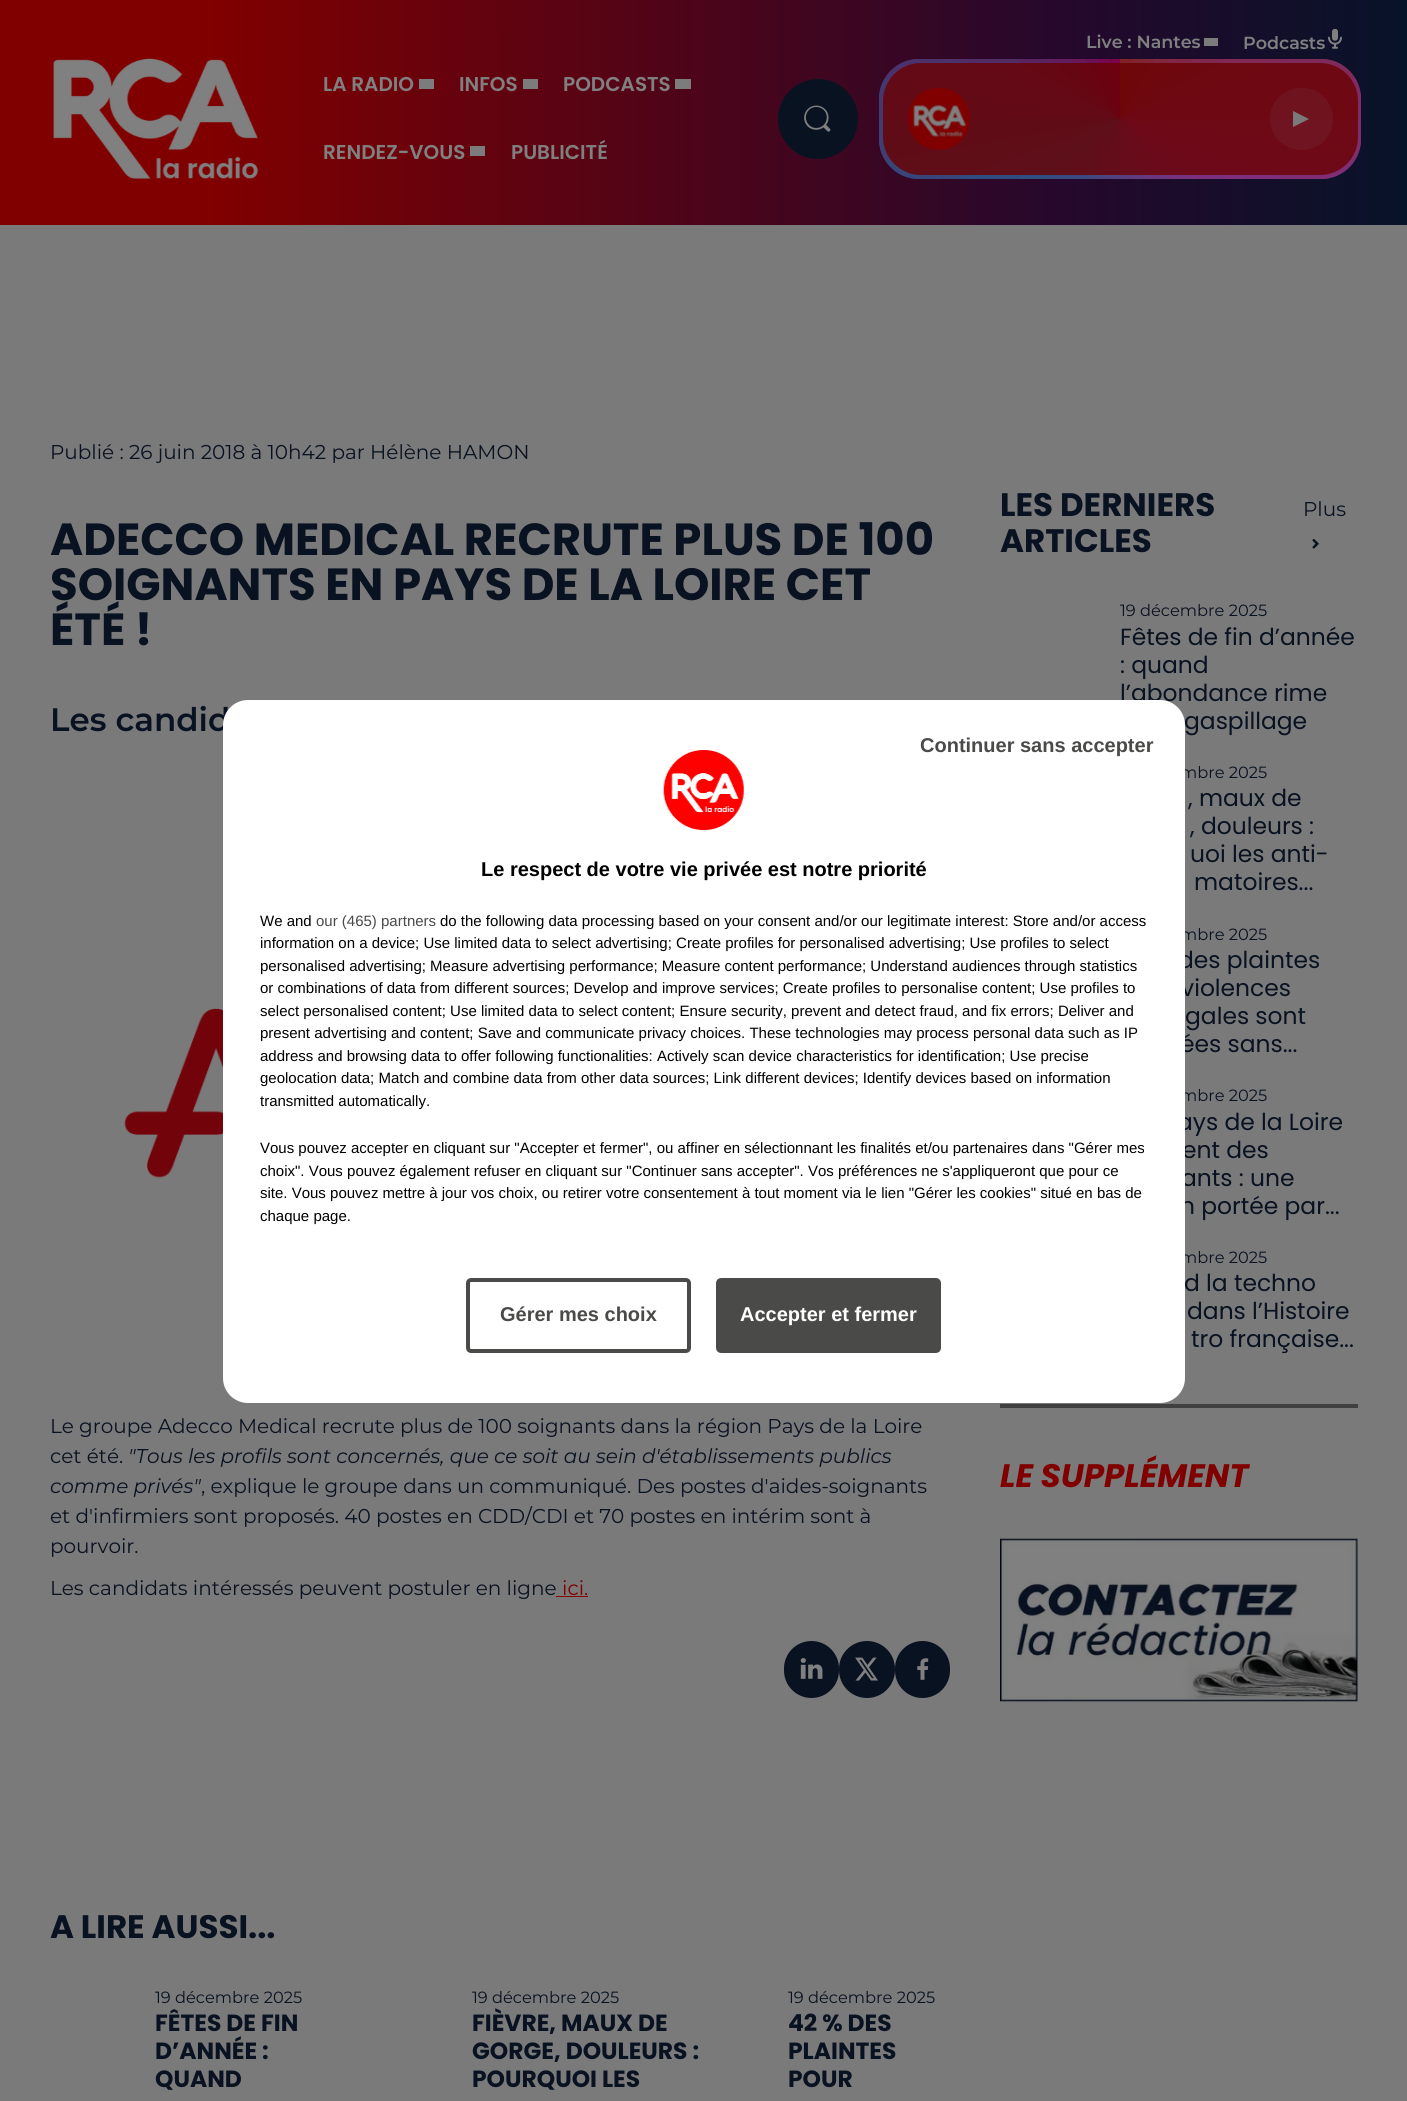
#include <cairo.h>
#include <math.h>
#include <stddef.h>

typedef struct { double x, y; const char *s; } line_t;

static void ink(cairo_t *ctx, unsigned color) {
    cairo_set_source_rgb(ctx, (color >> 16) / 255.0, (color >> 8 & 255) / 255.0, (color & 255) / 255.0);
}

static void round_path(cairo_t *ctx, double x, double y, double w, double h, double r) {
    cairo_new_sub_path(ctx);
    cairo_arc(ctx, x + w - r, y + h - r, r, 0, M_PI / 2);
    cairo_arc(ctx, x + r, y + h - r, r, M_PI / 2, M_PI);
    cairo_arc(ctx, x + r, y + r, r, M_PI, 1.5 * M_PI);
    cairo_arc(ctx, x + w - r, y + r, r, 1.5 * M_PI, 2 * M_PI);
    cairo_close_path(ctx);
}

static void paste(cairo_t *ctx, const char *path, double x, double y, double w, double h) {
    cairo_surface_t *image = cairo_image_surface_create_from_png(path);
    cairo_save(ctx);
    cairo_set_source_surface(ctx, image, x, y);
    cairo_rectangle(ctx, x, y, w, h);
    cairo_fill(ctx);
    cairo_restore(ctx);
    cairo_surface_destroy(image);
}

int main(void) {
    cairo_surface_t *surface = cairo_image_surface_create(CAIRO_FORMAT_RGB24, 1407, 2101);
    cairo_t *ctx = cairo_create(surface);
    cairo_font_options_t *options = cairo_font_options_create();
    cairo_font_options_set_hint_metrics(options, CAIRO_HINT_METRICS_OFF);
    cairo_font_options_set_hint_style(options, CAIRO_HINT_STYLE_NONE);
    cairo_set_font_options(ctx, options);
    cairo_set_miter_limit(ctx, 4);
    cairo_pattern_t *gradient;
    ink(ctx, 0x7A7A7A);
    cairo_paint(ctx);
    gradient = cairo_pattern_create_linear(0, 113, 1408, 112);
    cairo_pattern_add_color_stop_rgba(gradient, 0, 0.502, 0, 0, 1);
    cairo_pattern_add_color_stop_rgba(gradient, 0.15, 0.502, 0, 0, 1);
    cairo_pattern_add_color_stop_rgba(gradient, 0.75, 0.149, 0.031, 0.173, 1);
    cairo_pattern_add_color_stop_rgba(gradient, 1, 0.027, 0.075, 0.157, 1);
    cairo_set_source(ctx, gradient);
    cairo_pattern_destroy(gradient);
    cairo_rectangle(ctx, 0, 0, 1407, 225);
    cairo_fill(ctx);
    cairo_select_font_face(ctx, "Montserrat SemiBold", CAIRO_FONT_SLANT_NORMAL, CAIRO_FONT_WEIGHT_NORMAL);
    cairo_set_font_size(ctx, 17.5);
    ink(ctx, 0x808080);
    cairo_move_to(ctx, 1086, 48);
    cairo_show_text(ctx, "Live : Nantes");
    ink(ctx, 0x7C7C7C);
    cairo_rectangle(ctx, 1204, 38, 14, 8);
    cairo_fill(ctx);
    ink(ctx, 0x808080);
    cairo_move_to(ctx, 1243, 49);
    cairo_show_text(ctx, "Podcasts");
    paste(ctx, "media/1.png", 1328, 29, 14, 20);
    paste(ctx, "media/2.png", 879, 59, 482, 120);
    paste(ctx, "media/3.png", 879, 59, 482, 120);
    cairo_set_source_rgba(ctx, 0.412, 0, 0, 0.8);
    round_path(ctx, 883, 63, 475, 112, 38);
    cairo_fill(ctx);
    paste(ctx, "media/4.png", 907, 87, 63, 63);
    cairo_set_source_rgba(ctx, 0.478, 0.478, 0.478, 0.1);
    round_path(ctx, 1270, 88, 63, 62, 31);
    cairo_fill(ctx);
    ink(ctx, 0x7A7A7A);
    cairo_new_path(ctx);
    cairo_move_to(ctx, 1309, 119);
    cairo_line_to(ctx, 1293, 127);
    cairo_line_to(ctx, 1293, 111);
    cairo_close_path(ctx);
    cairo_fill(ctx);
    paste(ctx, "media/5.png", 53, 58, 205, 121);
    cairo_select_font_face(ctx, "Poppins SemiBold", CAIRO_FONT_SLANT_NORMAL, CAIRO_FONT_WEIGHT_NORMAL);
    cairo_set_font_size(ctx, 20);
    ink(ctx, 0x808080);
    cairo_move_to(ctx, 323, 91);
    cairo_show_text(ctx, "LA RADIO");
    ink(ctx, 0x7C7C7C);
    cairo_rectangle(ctx, 419, 79, 15, 10);
    cairo_fill(ctx);
    ink(ctx, 0x808080);
    cairo_move_to(ctx, 459, 91);
    cairo_show_text(ctx, "INFOS");
    ink(ctx, 0x7C7C7C);
    cairo_rectangle(ctx, 523, 79, 15, 10);
    cairo_fill(ctx);
    ink(ctx, 0x808080);
    cairo_move_to(ctx, 563, 91);
    cairo_show_text(ctx, "PODCASTS");
    ink(ctx, 0x7C7C7C);
    cairo_rectangle(ctx, 675, 79, 16, 10);
    cairo_fill(ctx);
    ink(ctx, 0x808080);
    cairo_move_to(ctx, 323, 159);
    cairo_show_text(ctx, "RENDEZ-VOUS");
    ink(ctx, 0x7C7C7C);
    cairo_rectangle(ctx, 470, 146, 15, 10);
    cairo_fill(ctx);
    ink(ctx, 0x808080);
    cairo_move_to(ctx, 511, 159);
    cairo_show_text(ctx, "PUBLICITÉ");
    ink(ctx, 0x091221);
    cairo_new_path(ctx);
    cairo_arc(ctx, 818, 119, 38.5, 0, 2 * M_PI);
    cairo_fill_preserve(ctx);
    cairo_set_line_width(ctx, 3);
    cairo_stroke(ctx);
    paste(ctx, "media/6.png", 804, 105, 27, 27);
    cairo_select_font_face(ctx, "Montserrat", CAIRO_FONT_SLANT_NORMAL, CAIRO_FONT_WEIGHT_NORMAL);
    cairo_move_to(ctx, 50, 459);
    cairo_show_text(ctx, "Publié : 26 juin 2018 à 10h42 par Hélène HAMON");
    cairo_select_font_face(ctx, "Poppins", CAIRO_FONT_SLANT_NORMAL, CAIRO_FONT_WEIGHT_BOLD);
    cairo_set_font_size(ctx, 45);
    {
        static const line_t items[] = {
            {50, 555, "ADECCO MEDICAL RECRUTE PLUS DE 100"},
            {50, 600, "SOIGNANTS EN PAYS DE LA LOIRE CET"},
            {50, 645, "ÉTÉ !"},
        };
        for (size_t i = 0; i < sizeof items / sizeof *items; i++) {
            cairo_move_to(ctx, items[i].x, items[i].y);
            cairo_show_text(ctx, items[i].s);
        }
    }
    cairo_select_font_face(ctx, "Montserrat SemiBold", CAIRO_FONT_SLANT_NORMAL, CAIRO_FONT_WEIGHT_NORMAL);
    cairo_set_font_size(ctx, 32.5);
    cairo_move_to(ctx, 50, 731);
    cairo_show_text(ctx, "Les candid");
    paste(ctx, "media/7.png", 124, 1008, 99, 170);
    cairo_select_font_face(ctx, "Montserrat", CAIRO_FONT_SLANT_NORMAL, CAIRO_FONT_WEIGHT_NORMAL);
    cairo_set_font_size(ctx, 20);
    cairo_move_to(ctx, 50, 1433);
    cairo_show_text(ctx, "Le groupe Adecco Medical recrute plus de 100 soignants dans la région Pays de la Loire");
    cairo_move_to(ctx, 50, 1463);
    cairo_show_text(ctx, "cet été.");
    cairo_select_font_face(ctx, "Montserrat", CAIRO_FONT_SLANT_ITALIC, CAIRO_FONT_WEIGHT_NORMAL);
    cairo_move_to(ctx, 128, 1463);
    cairo_show_text(ctx, "\"Tous les profils sont concernés, que ce soit au sein d'établissements publics");
    cairo_move_to(ctx, 50, 1493);
    cairo_show_text(ctx, "comme privés\"");
    cairo_select_font_face(ctx, "Montserrat", CAIRO_FONT_SLANT_NORMAL, CAIRO_FONT_WEIGHT_NORMAL);
    {
        static const line_t items[] = {
            {201, 1493, ", explique le groupe dans un communiqué. Des postes d'aides-soignants"},
            {50, 1523, "et d'infirmiers sont proposés. 40 postes en CDD/CDI et 70 postes en intérim sont à"},
            {50, 1553, "pourvoir."},
            {50, 1595, "Les candidats intéressés peuvent postuler en ligne"},
        };
        for (size_t i = 0; i < sizeof items / sizeof *items; i++) {
            cairo_move_to(ctx, items[i].x, items[i].y);
            cairo_show_text(ctx, items[i].s);
        }
    }
    ink(ctx, 0x800000);
    cairo_move_to(ctx, 562, 1595);
    cairo_show_text(ctx, "ici.");
    cairo_rectangle(ctx, 556, 1596, 32, 1);
    cairo_fill(ctx);
    ink(ctx, 0x091221);
    round_path(ctx, 785.5, 1642.5, 52, 54, 26);
    cairo_fill_preserve(ctx);
    cairo_stroke(ctx);
    paste(ctx, "media/8.png", 800, 1658, 23, 21);
    round_path(ctx, 840.5, 1642.5, 53, 54, 26.5);
    cairo_fill_preserve(ctx);
    cairo_stroke(ctx);
    paste(ctx, "media/9.png", 855, 1657, 23, 24);
    round_path(ctx, 896.5, 1642.5, 52, 54, 26);
    cairo_fill_preserve(ctx);
    cairo_stroke(ctx);
    paste(ctx, "media/10.png", 917, 1658, 12, 22);
    cairo_select_font_face(ctx, "Poppins", CAIRO_FONT_SLANT_NORMAL, CAIRO_FONT_WEIGHT_BOLD);
    cairo_set_font_size(ctx, 32.5);
    cairo_move_to(ctx, 50, 1938);
    cairo_show_text(ctx, "A LIRE AUSSI...");
    cairo_select_font_face(ctx, "Montserrat", CAIRO_FONT_SLANT_NORMAL, CAIRO_FONT_WEIGHT_NORMAL);
    cairo_set_font_size(ctx, 16.25);
    cairo_move_to(ctx, 155, 2003);
    cairo_show_text(ctx, "19 décembre 2025");
    cairo_select_font_face(ctx, "Poppins", CAIRO_FONT_SLANT_NORMAL, CAIRO_FONT_WEIGHT_BOLD);
    cairo_set_font_size(ctx, 23.4);
    {
        static const line_t items[] = {
            {155, 2031, "FÊTES DE FIN"},
            {155, 2059, "D’ANNÉE :"},
            {155, 2087, "QUAND"},
        };
        for (size_t i = 0; i < sizeof items / sizeof *items; i++) {
            cairo_move_to(ctx, items[i].x, items[i].y);
            cairo_show_text(ctx, items[i].s);
        }
    }
    cairo_select_font_face(ctx, "Montserrat", CAIRO_FONT_SLANT_NORMAL, CAIRO_FONT_WEIGHT_NORMAL);
    cairo_set_font_size(ctx, 16.25);
    cairo_move_to(ctx, 472, 2003);
    cairo_show_text(ctx, "19 décembre 2025");
    cairo_select_font_face(ctx, "Poppins", CAIRO_FONT_SLANT_NORMAL, CAIRO_FONT_WEIGHT_BOLD);
    cairo_set_font_size(ctx, 23.4);
    {
        static const line_t items[] = {
            {472, 2031, "FIÈVRE, MAUX DE"},
            {472, 2059, "GORGE, DOULEURS :"},
            {472, 2087, "POURQUOI LES"},
        };
        for (size_t i = 0; i < sizeof items / sizeof *items; i++) {
            cairo_move_to(ctx, items[i].x, items[i].y);
            cairo_show_text(ctx, items[i].s);
        }
    }
    cairo_select_font_face(ctx, "Montserrat", CAIRO_FONT_SLANT_NORMAL, CAIRO_FONT_WEIGHT_NORMAL);
    cairo_set_font_size(ctx, 16.25);
    cairo_move_to(ctx, 788, 2003);
    cairo_show_text(ctx, "19 décembre 2025");
    cairo_select_font_face(ctx, "Poppins", CAIRO_FONT_SLANT_NORMAL, CAIRO_FONT_WEIGHT_BOLD);
    cairo_set_font_size(ctx, 23.4);
    {
        static const line_t items[] = {
            {788, 2031, "42 % DES"},
            {788, 2059, "PLAINTES"},
            {788, 2087, "POUR"},
        };
        for (size_t i = 0; i < sizeof items / sizeof *items; i++) {
            cairo_move_to(ctx, items[i].x, items[i].y);
            cairo_show_text(ctx, items[i].s);
        }
    }
    cairo_set_font_size(ctx, 32.5);
    cairo_move_to(ctx, 1000, 516);
    cairo_show_text(ctx, "LES DERNIERS");
    cairo_move_to(ctx, 1000, 552);
    cairo_show_text(ctx, "ARTICLES");
    cairo_select_font_face(ctx, "Montserrat", CAIRO_FONT_SLANT_NORMAL, CAIRO_FONT_WEIGHT_NORMAL);
    cairo_set_font_size(ctx, 20);
    cairo_move_to(ctx, 1303, 516);
    cairo_show_text(ctx, "Plus");
    paste(ctx, "media/11.png", 1312, 539, 7, 10);
    cairo_set_font_size(ctx, 16.25);
    cairo_move_to(ctx, 1120, 616);
    cairo_show_text(ctx, "19 décembre 2025");
    cairo_select_font_face(ctx, "Poppins", CAIRO_FONT_SLANT_NORMAL, CAIRO_FONT_WEIGHT_NORMAL);
    cairo_set_font_size(ctx, 23.4);
    {
        static const line_t items[] = {
            {1120, 645, "Fêtes de fin d’année"},
            {1120, 673, ": quand"},
            {1120, 701, "l’abondance rime"},
            {1184, 729, "gaspillage"},
        };
        for (size_t i = 0; i < sizeof items / sizeof *items; i++) {
            cairo_move_to(ctx, items[i].x, items[i].y);
            cairo_show_text(ctx, items[i].s);
        }
    }
    cairo_select_font_face(ctx, "Montserrat", CAIRO_FONT_SLANT_NORMAL, CAIRO_FONT_WEIGHT_NORMAL);
    cairo_set_font_size(ctx, 16.25);
    cairo_move_to(ctx, 1180, 778);
    cairo_show_text(ctx, "mbre 2025");
    cairo_select_font_face(ctx, "Poppins", CAIRO_FONT_SLANT_NORMAL, CAIRO_FONT_WEIGHT_NORMAL);
    cairo_set_font_size(ctx, 23.4);
    {
        static const line_t items[] = {
            {1188, 806, ", maux de"},
            {1190, 834, ", douleurs :"},
            {1190, 862, "uoi les anti-"},
            {1194, 890, "matoires..."},
        };
        for (size_t i = 0; i < sizeof items / sizeof *items; i++) {
            cairo_move_to(ctx, items[i].x, items[i].y);
            cairo_show_text(ctx, items[i].s);
        }
    }
    cairo_select_font_face(ctx, "Montserrat", CAIRO_FONT_SLANT_NORMAL, CAIRO_FONT_WEIGHT_NORMAL);
    cairo_set_font_size(ctx, 16.25);
    cairo_move_to(ctx, 1180, 940);
    cairo_show_text(ctx, "mbre 2025");
    cairo_select_font_face(ctx, "Poppins", CAIRO_FONT_SLANT_NORMAL, CAIRO_FONT_WEIGHT_NORMAL);
    cairo_set_font_size(ctx, 23.4);
    {
        static const line_t items[] = {
            {1178, 968, "des plaintes"},
            {1181, 996, "violences"},
            {1185, 1024, "gales sont"},
            {1180, 1052, "ées sans..."},
        };
        for (size_t i = 0; i < sizeof items / sizeof *items; i++) {
            cairo_move_to(ctx, items[i].x, items[i].y);
            cairo_show_text(ctx, items[i].s);
        }
    }
    cairo_select_font_face(ctx, "Montserrat", CAIRO_FONT_SLANT_NORMAL, CAIRO_FONT_WEIGHT_NORMAL);
    cairo_set_font_size(ctx, 16.25);
    cairo_move_to(ctx, 1180, 1101);
    cairo_show_text(ctx, "mbre 2025");
    cairo_select_font_face(ctx, "Poppins", CAIRO_FONT_SLANT_NORMAL, CAIRO_FONT_WEIGHT_NORMAL);
    cairo_set_font_size(ctx, 23.4);
    {
        static const line_t items[] = {
            {1177, 1130, "ays de la Loire"},
            {1182, 1158, "ent des"},
            {1181, 1186, "ants : une"},
            {1180, 1214, "n portée par..."},
        };
        for (size_t i = 0; i < sizeof items / sizeof *items; i++) {
            cairo_move_to(ctx, items[i].x, items[i].y);
            cairo_show_text(ctx, items[i].s);
        }
    }
    cairo_select_font_face(ctx, "Montserrat", CAIRO_FONT_SLANT_NORMAL, CAIRO_FONT_WEIGHT_NORMAL);
    cairo_set_font_size(ctx, 16.25);
    cairo_move_to(ctx, 1180, 1263);
    cairo_show_text(ctx, "mbre 2025");
    cairo_select_font_face(ctx, "Poppins", CAIRO_FONT_SLANT_NORMAL, CAIRO_FONT_WEIGHT_NORMAL);
    cairo_set_font_size(ctx, 23.4);
    {
        static const line_t items[] = {
            {1184, 1291, "d la techno"},
            {1187, 1319, "dans l’Histoire"},
            {1191, 1347, "tro française..."},
        };
        for (size_t i = 0; i < sizeof items / sizeof *items; i++) {
            cairo_move_to(ctx, items[i].x, items[i].y);
            cairo_show_text(ctx, items[i].s);
        }
    }
    ink(ctx, 0x404040);
    cairo_rectangle(ctx, 1000, 1404, 358, 4);
    cairo_fill(ctx);
    cairo_select_font_face(ctx, "Poppins", CAIRO_FONT_SLANT_ITALIC, CAIRO_FONT_WEIGHT_BOLD);
    cairo_set_font_size(ctx, 32.5);
    ink(ctx, 0x800000);
    cairo_move_to(ctx, 1000, 1487);
    cairo_show_text(ctx, "LE SUPPLÉMENT");
    paste(ctx, "media/12.png", 1000, 1538, 358, 164);
    ink(ctx, 0xFFFFFF);
    round_path(ctx, 223, 700, 962, 703, 25);
    cairo_fill(ctx);
    cairo_select_font_face(ctx, "Liberation Sans", CAIRO_FONT_SLANT_NORMAL, CAIRO_FONT_WEIGHT_BOLD);
    cairo_set_font_size(ctx, 20);
    ink(ctx, 0x4A4A49);
    cairo_move_to(ctx, 920, 752);
    cairo_show_text(ctx, "Continuer sans accepter");
    round_path(ctx, 468, 1280, 221, 71, 3);
    cairo_set_line_width(ctx, 4);
    cairo_stroke(ctx);
    cairo_move_to(ctx, 500, 1321);
    cairo_show_text(ctx, "Gérer mes choix");
    round_path(ctx, 718, 1280, 221, 71, 3);
    cairo_fill_preserve(ctx);
    cairo_stroke(ctx);
    ink(ctx, 0xFFFFFF);
    cairo_move_to(ctx, 740, 1321);
    cairo_show_text(ctx, "Accepter et fermer");
    paste(ctx, "media/13.png", 663, 750, 81, 80);
    ink(ctx, 0x000000);
    cairo_move_to(ctx, 481, 876);
    cairo_show_text(ctx, "Le respect de votre vie privée est notre priorité");
    cairo_select_font_face(ctx, "Liberation Sans", CAIRO_FONT_SLANT_NORMAL, CAIRO_FONT_WEIGHT_NORMAL);
    cairo_set_font_size(ctx, 15);
    cairo_move_to(ctx, 260, 926);
    cairo_show_text(ctx, "We and");
    ink(ctx, 0x4A4A49);
    cairo_move_to(ctx, 316, 926);
    cairo_show_text(ctx, "our (465) partners");
    ink(ctx, 0x000000);
    {
        static const line_t items[] = {
            {440, 926, "do the following data processing based on your consent and/or our legitimate interest: Store and/or access"},
            {260, 948, "information on a device; Use limited data to select advertising; Create profiles for personalised advertising; Use profiles to select"},
            {260, 971, "personalised advertising; Measure advertising performance; Measure content performance; Understand audiences through statistics"},
            {260, 993, "or combinations of data from different sources; Develop and improve services; Create profiles to personalise content; Use profiles to"},
            {260, 1016, "select personalised content; Use limited data to select content; Ensure security, prevent and detect fraud, and fix errors; Deliver and"},
            {260, 1038, "present advertising and content; Save and communicate privacy choices. These technologies may process personal data such as IP"},
            {260, 1061, "address and browsing data to offer following functionalities: Actively scan device characteristics for identification; Use precise"},
            {260, 1083, "geolocation data; Match and combine data from other data sources; Link different devices; Identify devices based on information"},
            {260, 1106, "transmitted automatically."},
            {260, 1153, "Vous pouvez accepter en cliquant sur \"Accepter et fermer\", ou affiner en sélectionnant les finalités et/ou partenaires dans \"Gérer mes"},
            {260, 1176, "choix\". Vous pouvez également refuser en cliquant sur \"Continuer sans accepter\". Vos préférences ne s'appliqueront que pour ce"},
            {260, 1198, "site. Vous pouvez mettre à jour vos choix, ou retirer votre consentement à tout moment via le lien \"Gérer les cookies\" situé en bas de"},
            {260, 1221, "chaque page."},
        };
        for (size_t i = 0; i < sizeof items / sizeof *items; i++) {
            cairo_move_to(ctx, items[i].x, items[i].y);
            cairo_show_text(ctx, items[i].s);
        }
    }
    cairo_surface_write_to_png(surface, "image.png");
    cairo_font_options_destroy(options);
    cairo_destroy(ctx);
    cairo_surface_destroy(surface);
    return 0;
}
